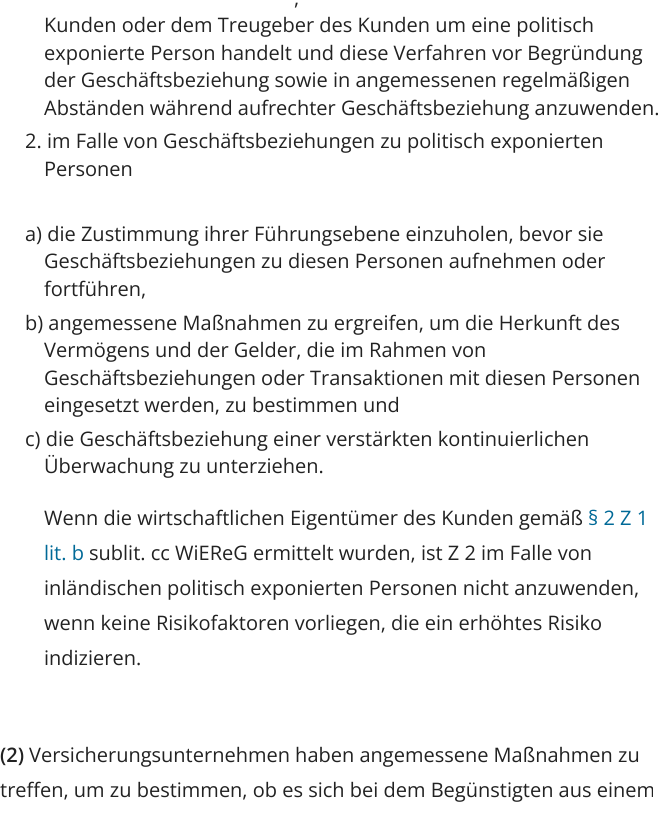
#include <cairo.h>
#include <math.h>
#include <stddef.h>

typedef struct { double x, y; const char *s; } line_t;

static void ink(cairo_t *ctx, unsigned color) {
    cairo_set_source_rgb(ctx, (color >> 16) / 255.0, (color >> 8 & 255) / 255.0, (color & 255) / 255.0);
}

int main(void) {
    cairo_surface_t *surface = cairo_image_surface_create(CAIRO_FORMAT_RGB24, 664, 820);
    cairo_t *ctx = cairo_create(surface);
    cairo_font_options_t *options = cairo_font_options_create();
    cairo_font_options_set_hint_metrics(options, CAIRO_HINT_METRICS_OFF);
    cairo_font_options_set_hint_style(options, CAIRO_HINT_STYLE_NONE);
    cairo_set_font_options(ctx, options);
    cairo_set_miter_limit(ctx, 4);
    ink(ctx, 0xFFFFFF);
    cairo_paint(ctx);
    cairo_select_font_face(ctx, "Open Sans", CAIRO_FONT_SLANT_NORMAL, CAIRO_FONT_WEIGHT_NORMAL);
    cairo_set_font_size(ctx, 20);
    ink(ctx, 0x222222);
    {
        static const line_t items[] = {
            {294, 5, ","},
            {44, 32, "Kunden oder dem Treugeber des Kunden um eine politisch"},
            {44, 60, "exponierte Person handelt und diese Verfahren vor Begründung"},
            {44, 87, "der Geschäftsbeziehung sowie in angemessenen regelmäßigen"},
            {44, 115, "Abständen während aufrechter Geschäftsbeziehung anzuwenden."},
            {25, 148, "2. im Falle von Geschäftsbeziehungen zu politisch exponierten"},
            {44, 176, "Personen"},
            {25, 241, "a) die Zustimmung ihrer Führungsebene einzuholen, bevor sie"},
            {44, 268, "Geschäftsbeziehungen zu diesen Personen aufnehmen oder"},
            {44, 296, "fortführen,"},
            {25, 330, "b) angemessene Maßnahmen zu ergreifen, um die Herkunft des"},
            {44, 357, "Vermögens und der Gelder, die im Rahmen von"},
            {44, 385, "Geschäftsbeziehungen oder Transaktionen mit diesen Personen"},
            {44, 412, "eingesetzt werden, zu bestimmen und"},
            {25, 446, "c) die Geschäftsbeziehung einer verstärkten kontinuierlichen"},
            {44, 473, "Überwachung zu unterziehen."},
            {44, 525, "Wenn die wirtschaftlichen Eigentümer des Kunden gemäß"},
        };
        for (size_t i = 0; i < sizeof items / sizeof *items; i++) {
            cairo_move_to(ctx, items[i].x, items[i].y);
            cairo_show_text(ctx, items[i].s);
        }
    }
    ink(ctx, 0x006997);
    cairo_move_to(ctx, 588, 525);
    cairo_show_text(ctx, "§ 2 Z 1");
    cairo_move_to(ctx, 44, 560);
    cairo_show_text(ctx, "lit. b");
    ink(ctx, 0x222222);
    {
        static const line_t items[] = {
            {89, 560, "sublit. cc WiEReG ermittelt wurden, ist Z 2 im Falle von"},
            {44, 595, "inländischen politisch exponierten Personen nicht anzuwenden,"},
            {44, 630, "wenn keine Risikofaktoren vorliegen, die ein erhöhtes Risiko"},
            {44, 665, "indizieren."},
        };
        for (size_t i = 0; i < sizeof items / sizeof *items; i++) {
            cairo_move_to(ctx, items[i].x, items[i].y);
            cairo_show_text(ctx, items[i].s);
        }
    }
    cairo_select_font_face(ctx, "Open Sans SemiBold", CAIRO_FONT_SLANT_NORMAL, CAIRO_FONT_WEIGHT_NORMAL);
    cairo_move_to(ctx, 0, 762);
    cairo_show_text(ctx, "(2)");
    cairo_select_font_face(ctx, "Open Sans", CAIRO_FONT_SLANT_NORMAL, CAIRO_FONT_WEIGHT_NORMAL);
    cairo_move_to(ctx, 29, 762);
    cairo_show_text(ctx, "Versicherungsunternehmen haben angemessene Maßnahmen zu");
    cairo_move_to(ctx, 0, 797);
    cairo_show_text(ctx, "treffen, um zu bestimmen, ob es sich bei dem Begünstigten aus einem");
    cairo_surface_write_to_png(surface, "image.png");
    cairo_font_options_destroy(options);
    cairo_destroy(ctx);
    cairo_surface_destroy(surface);
    return 0;
}
